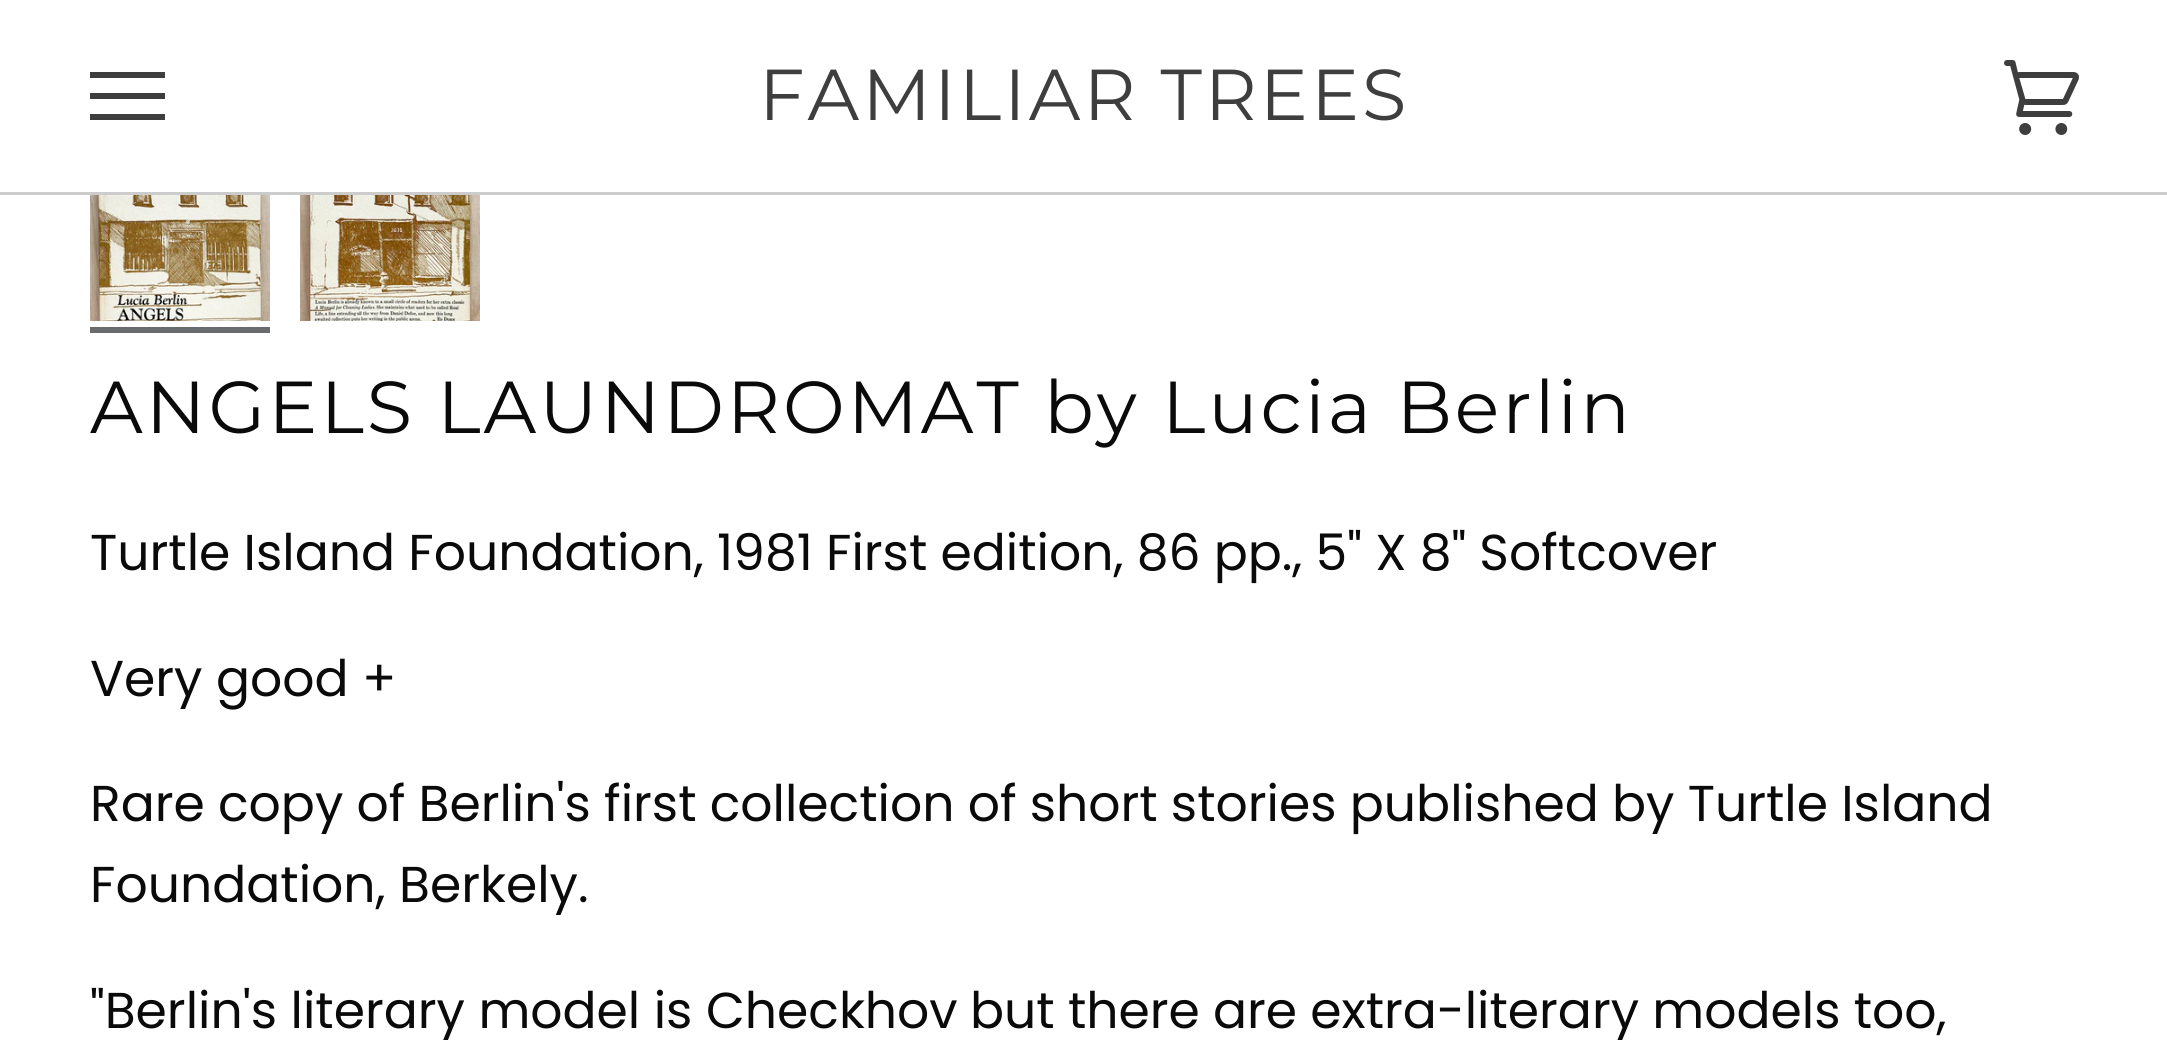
#include <cairo.h>
#include <math.h>
#include <stddef.h>


static void ink(cairo_t *ctx, unsigned color) {
    cairo_set_source_rgb(ctx, (color >> 16) / 255.0, (color >> 8 & 255) / 255.0, (color & 255) / 255.0);
}

static void write_spaced(cairo_t *ctx, double x, double y, const char *s, double letter, double word) {
    cairo_move_to(ctx, x, y);
    while (*s) {
        char ch[5] = {0};
        int n = 0;
        do ch[n++] = *s++; while ((*s & 0xC0) == 0x80);
        cairo_show_text(ctx, ch);
        cairo_rel_move_to(ctx, letter + word * (*ch == ' '), 0);
    }
}

static void paste(cairo_t *ctx, const char *path, double x, double y, double w, double h) {
    cairo_surface_t *image = cairo_image_surface_create_from_png(path);
    cairo_save(ctx);
    cairo_set_source_surface(ctx, image, x, y);
    cairo_rectangle(ctx, x, y, w, h);
    cairo_fill(ctx);
    cairo_restore(ctx);
    cairo_surface_destroy(image);
}

int main(void) {
    cairo_surface_t *surface = cairo_image_surface_create(CAIRO_FORMAT_RGB24, 2167, 1040);
    cairo_t *ctx = cairo_create(surface);
    cairo_font_options_t *options = cairo_font_options_create();
    cairo_font_options_set_hint_metrics(options, CAIRO_HINT_METRICS_OFF);
    cairo_font_options_set_hint_style(options, CAIRO_HINT_STYLE_NONE);
    cairo_set_font_options(ctx, options);
    cairo_set_miter_limit(ctx, 4);
    ink(ctx, 0xFFFFFF);
    cairo_paint(ctx);
    ink(ctx, 0xCCCCCC);
    cairo_rectangle(ctx, 0, 192, 2167, 3);
    cairo_fill(ctx);
    ink(ctx, 0x3F3E3E);
    cairo_new_path(ctx);
    cairo_move_to(ctx, 90, 72);
    cairo_line_to(ctx, 165, 72);
    cairo_line_to(ctx, 165, 78);
    cairo_line_to(ctx, 90, 78);
    cairo_close_path(ctx);
    cairo_move_to(ctx, 90, 93);
    cairo_line_to(ctx, 165, 93);
    cairo_line_to(ctx, 165, 99);
    cairo_line_to(ctx, 90, 99);
    cairo_close_path(ctx);
    cairo_move_to(ctx, 90, 114);
    cairo_line_to(ctx, 165, 114);
    cairo_line_to(ctx, 165, 120);
    cairo_line_to(ctx, 90, 120);
    cairo_close_path(ctx);
    cairo_fill(ctx);
    cairo_select_font_face(ctx, "Montserrat", CAIRO_FONT_SLANT_NORMAL, CAIRO_FONT_WEIGHT_NORMAL);
    cairo_set_font_size(ctx, 72);
    write_spaced(ctx, 759, 120, "FAMILIAR TREES", 3, 0);
    paste(ctx, "media/1.png", 2004, 60, 75, 75);
    paste(ctx, "media/2.png", 90, 195, 180, 126);
    ink(ctx, 0x6A6B6C);
    cairo_rectangle(ctx, 90, 327, 180, 6);
    cairo_fill(ctx);
    paste(ctx, "media/3.png", 300, 195, 180, 126);
    cairo_set_font_size(ctx, 73.5);
    ink(ctx, 0x0A0A0A);
    write_spaced(ctx, 90, 433, "ANGELS LAUNDROMAT by Lucia Berlin", 3, 0);
    cairo_select_font_face(ctx, "Poppins", CAIRO_FONT_SLANT_NORMAL, CAIRO_FONT_WEIGHT_NORMAL);
    cairo_set_font_size(ctx, 50.4);
    write_spaced(ctx, 90, 570, "Turtle Island Foundation, 1981 First edition, 86 pp., 5\" X 8\" Softcover", 0, -0.25);
    cairo_move_to(ctx, 90, 696);
    cairo_show_text(ctx, "Very good +");
    write_spaced(ctx, 90, 821, "Rare copy of Berlin's first collection of short stories published by Turtle Island", 0, -0.25);
    cairo_move_to(ctx, 90, 902);
    cairo_show_text(ctx, "Foundation, Berkely.");
    cairo_move_to(ctx, 90, 1028);
    cairo_show_text(ctx, "\"Berlin's literary model is Checkhov");
    write_spaced(ctx, 970, 1028, "but there are extra-literary models too,", 0, -0.25);
    cairo_surface_write_to_png(surface, "image.png");
    cairo_font_options_destroy(options);
    cairo_destroy(ctx);
    cairo_surface_destroy(surface);
    return 0;
}
